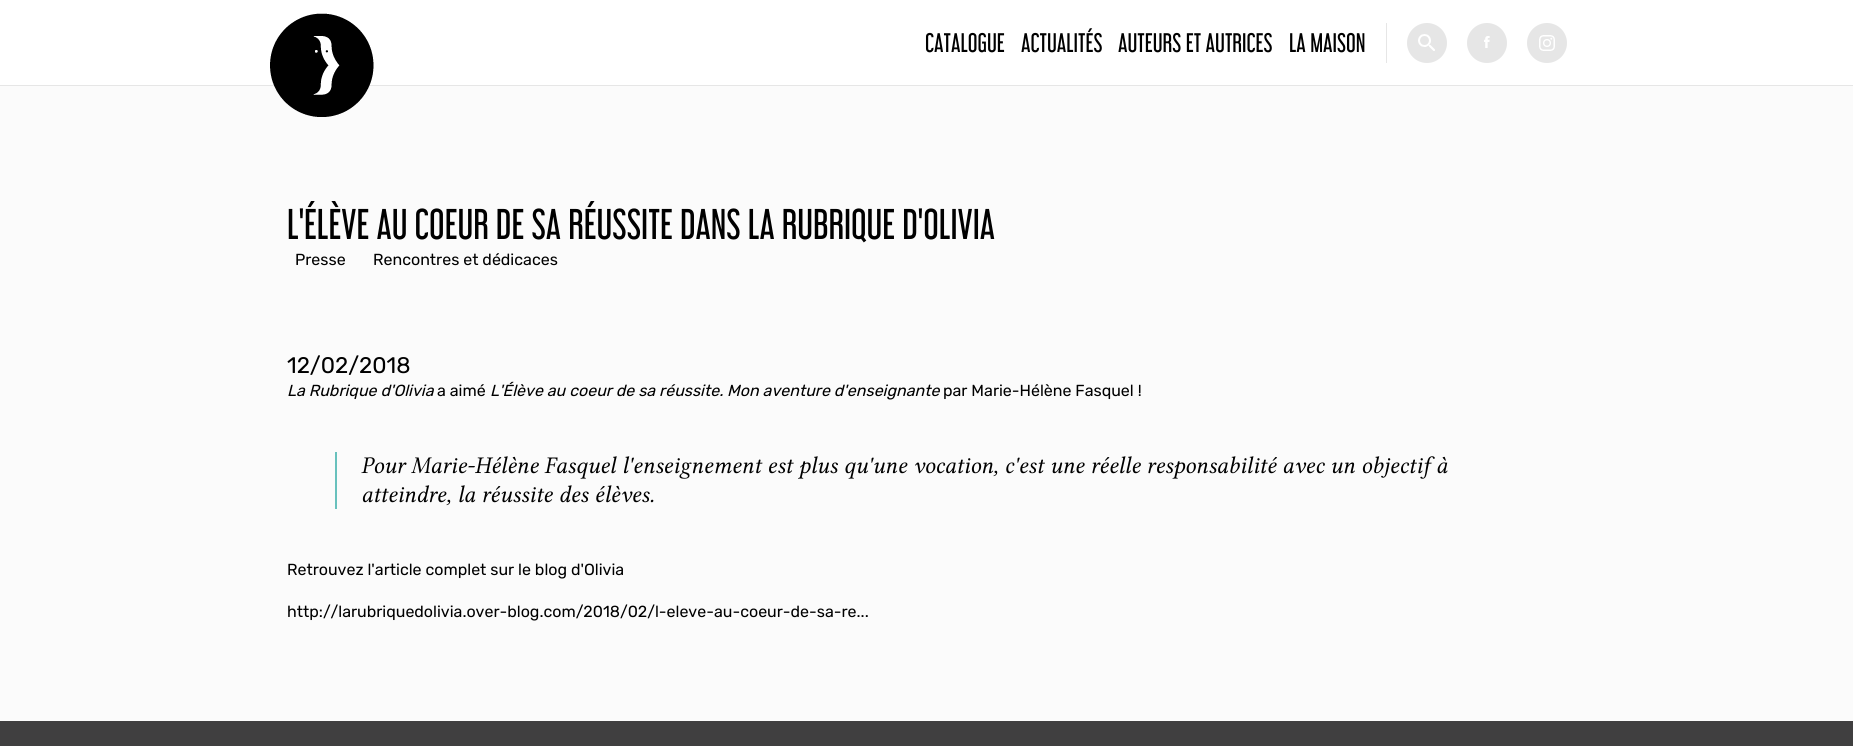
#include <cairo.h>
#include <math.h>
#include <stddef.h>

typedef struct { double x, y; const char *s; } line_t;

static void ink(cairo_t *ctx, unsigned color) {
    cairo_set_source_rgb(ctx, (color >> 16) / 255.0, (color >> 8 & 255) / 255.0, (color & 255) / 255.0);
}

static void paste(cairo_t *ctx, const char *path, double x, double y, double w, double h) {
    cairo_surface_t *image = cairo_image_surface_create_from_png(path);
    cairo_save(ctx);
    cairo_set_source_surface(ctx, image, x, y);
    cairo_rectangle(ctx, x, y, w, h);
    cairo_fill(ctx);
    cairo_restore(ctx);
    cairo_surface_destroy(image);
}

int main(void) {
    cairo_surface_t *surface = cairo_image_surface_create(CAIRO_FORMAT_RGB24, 1853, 746);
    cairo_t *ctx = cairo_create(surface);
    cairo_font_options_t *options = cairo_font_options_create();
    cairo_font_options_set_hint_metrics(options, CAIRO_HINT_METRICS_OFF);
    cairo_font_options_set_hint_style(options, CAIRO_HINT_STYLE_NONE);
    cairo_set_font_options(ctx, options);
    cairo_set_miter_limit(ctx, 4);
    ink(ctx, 0xFBFBFB);
    cairo_paint(ctx);
    ink(ctx, 0xFFFFFF);
    cairo_rectangle(ctx, 0, 0, 1853, 85);
    cairo_fill(ctx);
    ink(ctx, 0xE6E6E6);
    cairo_rectangle(ctx, 0, 85, 1853, 1);
    cairo_fill(ctx);
    paste(ctx, "media/1.png", 270, 13, 104, 104);
    cairo_rectangle(ctx, 1386, 23, 1, 40);
    cairo_fill(ctx);
    cairo_select_font_face(ctx, "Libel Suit", CAIRO_FONT_SLANT_NORMAL, CAIRO_FONT_WEIGHT_NORMAL);
    cairo_set_font_size(ctx, 24);
    ink(ctx, 0x000000);
    {
        static const line_t items[] = {
            {925, 52, "CATALOGUE"},
            {1021, 52, "ACTUALITÉS"},
            {1118, 52, "AUTEURS ET AUTRICES"},
            {1289, 52, "LA MAISON"},
        };
        for (size_t i = 0; i < sizeof items / sizeof *items; i++) {
            cairo_move_to(ctx, items[i].x, items[i].y);
            cairo_show_text(ctx, items[i].s);
        }
    }
    ink(ctx, 0xE6E6E6);
    cairo_new_path(ctx);
    cairo_arc(ctx, 1427, 43, 20, 0, 2 * M_PI);
    cairo_fill(ctx);
    paste(ctx, "media/2.png", 1418, 34, 17, 17);
    cairo_arc(ctx, 1487, 43, 20, 0, 2 * M_PI);
    cairo_fill(ctx);
    paste(ctx, "media/3.png", 1484, 36, 6, 12);
    cairo_arc(ctx, 1547, 43, 20, 0, 2 * M_PI);
    cairo_fill(ctx);
    paste(ctx, "media/4.png", 1539, 35, 16, 16);
    cairo_set_font_size(ctx, 38.4);
    ink(ctx, 0x000000);
    cairo_move_to(ctx, 287, 239);
    cairo_show_text(ctx, "L'ÉLÈVE AU COEUR DE SA RÉUSSITE DANS LA RUBRIQUE D'OLIVIA");
    cairo_select_font_face(ctx, "Rubik", CAIRO_FONT_SLANT_NORMAL, CAIRO_FONT_WEIGHT_NORMAL);
    cairo_set_font_size(ctx, 16);
    cairo_move_to(ctx, 295, 265);
    cairo_show_text(ctx, "Presse");
    cairo_move_to(ctx, 373, 265);
    cairo_show_text(ctx, "Rencontres et dédicaces");
    cairo_set_font_size(ctx, 22.5);
    cairo_move_to(ctx, 287, 373);
    cairo_show_text(ctx, "12/02/2018");
    cairo_select_font_face(ctx, "Rubik", CAIRO_FONT_SLANT_ITALIC, CAIRO_FONT_WEIGHT_NORMAL);
    cairo_set_font_size(ctx, 16);
    cairo_move_to(ctx, 287, 396);
    cairo_show_text(ctx, "La Rubrique d'Olivia");
    cairo_select_font_face(ctx, "Rubik", CAIRO_FONT_SLANT_NORMAL, CAIRO_FONT_WEIGHT_NORMAL);
    cairo_move_to(ctx, 437, 396);
    cairo_show_text(ctx, "a aimé");
    cairo_select_font_face(ctx, "Rubik", CAIRO_FONT_SLANT_ITALIC, CAIRO_FONT_WEIGHT_NORMAL);
    cairo_move_to(ctx, 490, 396);
    cairo_show_text(ctx, "L'Élève au coeur de sa réussite. Mon aventure d'enseignante");
    cairo_select_font_face(ctx, "Rubik", CAIRO_FONT_SLANT_NORMAL, CAIRO_FONT_WEIGHT_NORMAL);
    cairo_move_to(ctx, 943, 396);
    cairo_show_text(ctx, "par Marie-Hélène Fasquel !");
    ink(ctx, 0x68C1BD);
    cairo_rectangle(ctx, 335, 452, 2, 57);
    cairo_fill(ctx);
    cairo_select_font_face(ctx, "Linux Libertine", CAIRO_FONT_SLANT_ITALIC, CAIRO_FONT_WEIGHT_NORMAL);
    cairo_set_font_size(ctx, 24);
    ink(ctx, 0x000000);
    cairo_move_to(ctx, 361, 473);
    cairo_show_text(ctx, "Pour Marie-Hélène Fasquel l'enseignement est plus qu'une vocation, c'est une réelle responsabilité avec un objectif à");
    cairo_move_to(ctx, 361, 502);
    cairo_show_text(ctx, "atteindre, la réussite des élèves.");
    cairo_select_font_face(ctx, "Rubik", CAIRO_FONT_SLANT_NORMAL, CAIRO_FONT_WEIGHT_NORMAL);
    cairo_set_font_size(ctx, 16);
    cairo_move_to(ctx, 287, 575);
    cairo_show_text(ctx, "Retrouvez l'article complet sur le blog d'Olivia");
    cairo_move_to(ctx, 287, 617);
    cairo_show_text(ctx, "http://larubriquedolivia.over-blog.com/2018/02/l-eleve-au-coeur-de-sa-re...");
    ink(ctx, 0x403F40);
    cairo_rectangle(ctx, 0, 721, 1853, 25);
    cairo_fill(ctx);
    cairo_surface_write_to_png(surface, "image.png");
    cairo_font_options_destroy(options);
    cairo_destroy(ctx);
    cairo_surface_destroy(surface);
    return 0;
}
